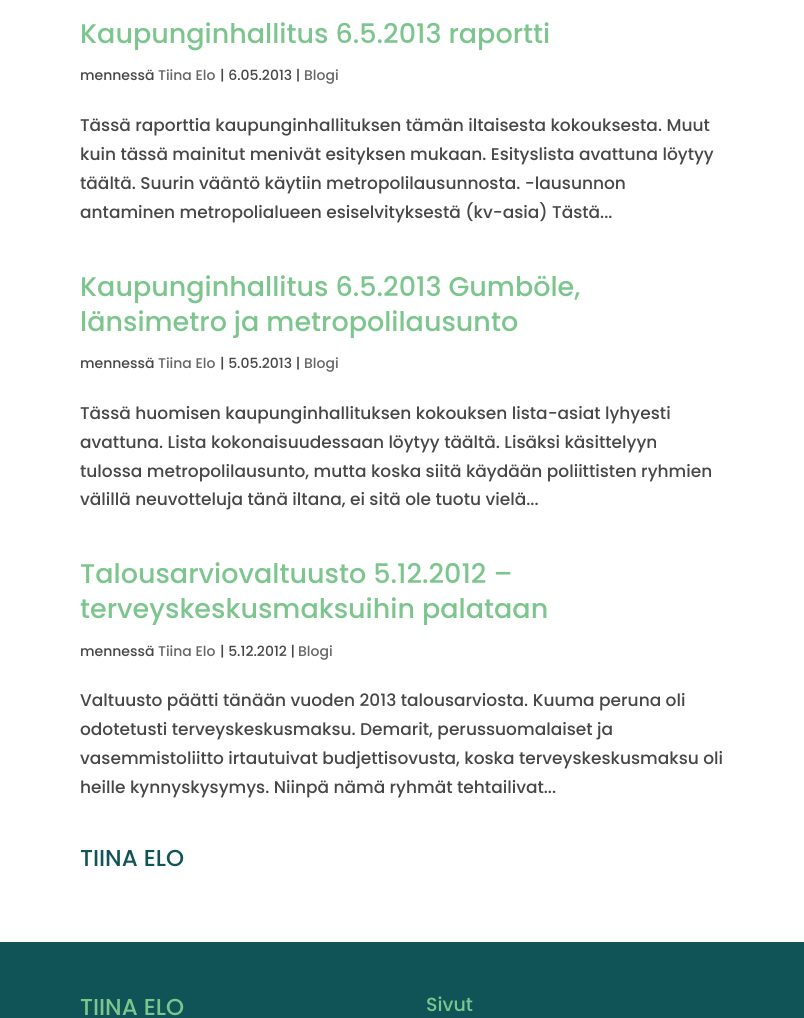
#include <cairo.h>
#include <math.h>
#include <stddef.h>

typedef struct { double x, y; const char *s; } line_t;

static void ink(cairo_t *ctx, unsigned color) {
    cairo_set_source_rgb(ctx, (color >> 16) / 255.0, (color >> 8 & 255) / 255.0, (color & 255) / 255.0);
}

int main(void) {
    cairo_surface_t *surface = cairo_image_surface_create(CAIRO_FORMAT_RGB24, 804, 1018);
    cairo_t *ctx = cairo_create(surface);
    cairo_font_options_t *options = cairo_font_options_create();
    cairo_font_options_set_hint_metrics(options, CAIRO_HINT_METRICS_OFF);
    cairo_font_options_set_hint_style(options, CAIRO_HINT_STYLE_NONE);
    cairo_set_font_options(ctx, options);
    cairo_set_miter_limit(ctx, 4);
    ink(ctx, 0xFFFFFF);
    cairo_paint(ctx);
    cairo_select_font_face(ctx, "Poppins Medium", CAIRO_FONT_SLANT_NORMAL, CAIRO_FONT_WEIGHT_NORMAL);
    cairo_set_font_size(ctx, 27);
    ink(ctx, 0x7CC68D);
    cairo_move_to(ctx, 80, 43);
    cairo_show_text(ctx, "Kaupunginhallitus 6.5.2013 raportti");
    cairo_set_font_size(ctx, 14);
    ink(ctx, 0x474747);
    cairo_move_to(ctx, 80, 80);
    cairo_show_text(ctx, "mennessä");
    ink(ctx, 0x666666);
    cairo_move_to(ctx, 158, 80);
    cairo_show_text(ctx, "Tiina Elo");
    ink(ctx, 0x474747);
    cairo_move_to(ctx, 220, 80);
    cairo_show_text(ctx, "| 6.05.2013 |");
    ink(ctx, 0x666666);
    cairo_move_to(ctx, 304, 80);
    cairo_show_text(ctx, "Blogi");
    cairo_set_font_size(ctx, 17);
    ink(ctx, 0x474747);
    {
        static const line_t items[] = {
            {80, 131, "Tässä raporttia kaupunginhallituksen tämän iltaisesta kokouksesta. Muut"},
            {80, 160, "kuin tässä mainitut menivät esityksen mukaan. Esityslista avattuna löytyy"},
            {80, 189, "täältä. Suurin vääntö käytiin metropolilausunnosta. -lausunnon"},
            {80, 218, "antaminen metropolialueen esiselvityksestä (kv-asia) Tästä..."},
        };
        for (size_t i = 0; i < sizeof items / sizeof *items; i++) {
            cairo_move_to(ctx, items[i].x, items[i].y);
            cairo_show_text(ctx, items[i].s);
        }
    }
    cairo_set_font_size(ctx, 27);
    ink(ctx, 0x7CC68D);
    cairo_move_to(ctx, 80, 296);
    cairo_show_text(ctx, "Kaupunginhallitus 6.5.2013 Gumböle,");
    cairo_move_to(ctx, 80, 331);
    cairo_show_text(ctx, "länsimetro ja metropolilausunto");
    cairo_set_font_size(ctx, 14);
    ink(ctx, 0x474747);
    cairo_move_to(ctx, 80, 368);
    cairo_show_text(ctx, "mennessä");
    ink(ctx, 0x666666);
    cairo_move_to(ctx, 158, 368);
    cairo_show_text(ctx, "Tiina Elo");
    ink(ctx, 0x474747);
    cairo_move_to(ctx, 220, 368);
    cairo_show_text(ctx, "| 5.05.2013 |");
    ink(ctx, 0x666666);
    cairo_move_to(ctx, 304, 368);
    cairo_show_text(ctx, "Blogi");
    cairo_set_font_size(ctx, 17);
    ink(ctx, 0x474747);
    {
        static const line_t items[] = {
            {80, 419, "Tässä huomisen kaupunginhallituksen kokouksen lista-asiat lyhyesti"},
            {80, 448, "avattuna. Lista kokonaisuudessaan löytyy täältä. Lisäksi käsittelyyn"},
            {80, 477, "tulossa metropolilausunto, mutta koska siitä käydään poliittisten ryhmien"},
            {80, 505, "välillä neuvotteluja tänä iltana, ei sitä ole tuotu vielä..."},
        };
        for (size_t i = 0; i < sizeof items / sizeof *items; i++) {
            cairo_move_to(ctx, items[i].x, items[i].y);
            cairo_show_text(ctx, items[i].s);
        }
    }
    cairo_set_font_size(ctx, 27);
    ink(ctx, 0x7CC68D);
    cairo_move_to(ctx, 80, 583);
    cairo_show_text(ctx, "Talousarviovaltuusto 5.12.2012 –");
    cairo_move_to(ctx, 80, 618);
    cairo_show_text(ctx, "terveyskeskusmaksuihin palataan");
    cairo_set_font_size(ctx, 14);
    ink(ctx, 0x474747);
    cairo_move_to(ctx, 80, 656);
    cairo_show_text(ctx, "mennessä");
    ink(ctx, 0x666666);
    cairo_move_to(ctx, 158, 656);
    cairo_show_text(ctx, "Tiina Elo");
    ink(ctx, 0x474747);
    cairo_move_to(ctx, 220, 656);
    cairo_show_text(ctx, "| 5.12.2012 |");
    ink(ctx, 0x666666);
    cairo_move_to(ctx, 298, 656);
    cairo_show_text(ctx, "Blogi");
    cairo_set_font_size(ctx, 17);
    ink(ctx, 0x474747);
    {
        static const line_t items[] = {
            {80, 706, "Valtuusto päätti tänään vuoden 2013 talousarviosta. Kuuma peruna oli"},
            {80, 735, "odotetusti terveyskeskusmaksu. Demarit, perussuomalaiset ja"},
            {80, 764, "vasemmistoliitto irtautuivat budjettisovusta, koska terveyskeskusmaksu oli"},
            {80, 793, "heille kynnyskysymys. Niinpä nämä ryhmät tehtailivat..."},
        };
        for (size_t i = 0; i < sizeof items / sizeof *items; i++) {
            cairo_move_to(ctx, items[i].x, items[i].y);
            cairo_show_text(ctx, items[i].s);
        }
    }
    cairo_set_font_size(ctx, 23);
    ink(ctx, 0x115458);
    cairo_move_to(ctx, 80, 866);
    cairo_show_text(ctx, "TIINA ELO");
    cairo_rectangle(ctx, 0, 942, 804, 76);
    cairo_fill(ctx);
    ink(ctx, 0x7CC68D);
    cairo_move_to(ctx, 80, 1015);
    cairo_show_text(ctx, "TIINA ELO");
    cairo_set_font_size(ctx, 19);
    cairo_move_to(ctx, 426, 1011);
    cairo_show_text(ctx, "Sivut");
    cairo_surface_write_to_png(surface, "image.png");
    cairo_font_options_destroy(options);
    cairo_destroy(ctx);
    cairo_surface_destroy(surface);
    return 0;
}
